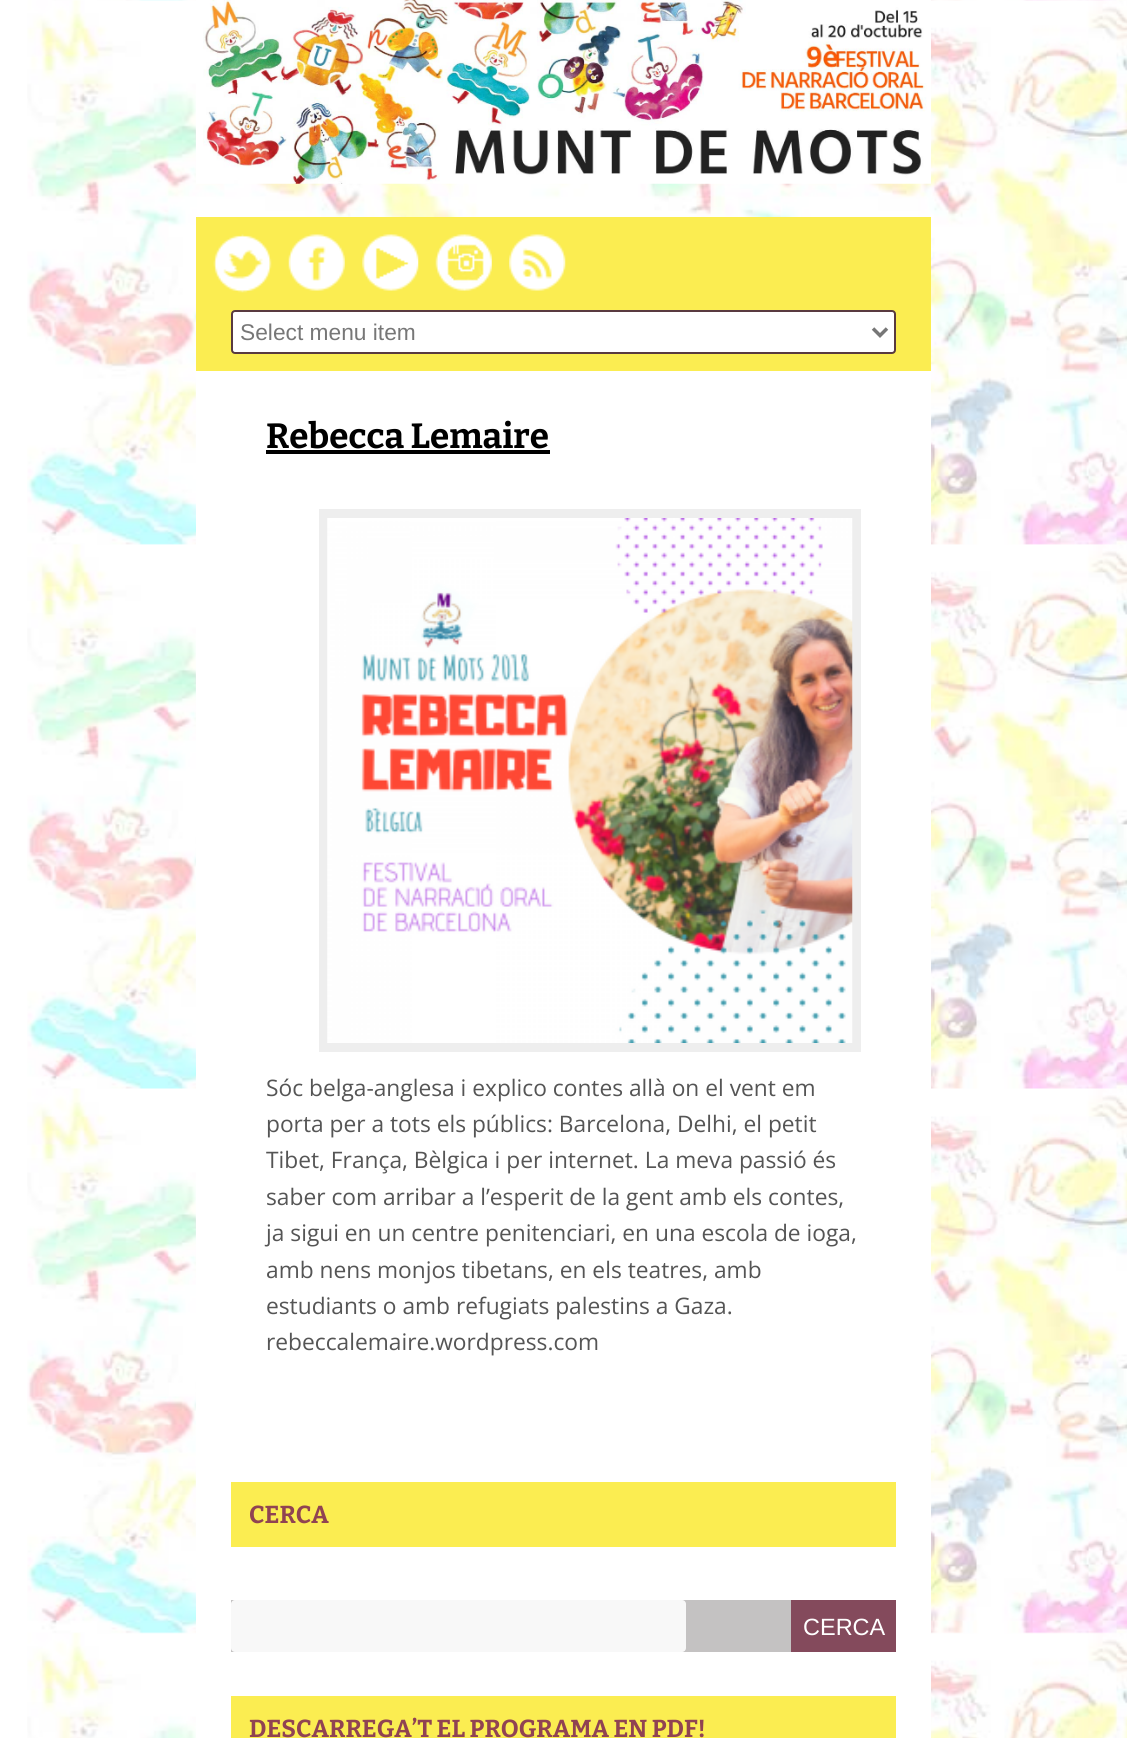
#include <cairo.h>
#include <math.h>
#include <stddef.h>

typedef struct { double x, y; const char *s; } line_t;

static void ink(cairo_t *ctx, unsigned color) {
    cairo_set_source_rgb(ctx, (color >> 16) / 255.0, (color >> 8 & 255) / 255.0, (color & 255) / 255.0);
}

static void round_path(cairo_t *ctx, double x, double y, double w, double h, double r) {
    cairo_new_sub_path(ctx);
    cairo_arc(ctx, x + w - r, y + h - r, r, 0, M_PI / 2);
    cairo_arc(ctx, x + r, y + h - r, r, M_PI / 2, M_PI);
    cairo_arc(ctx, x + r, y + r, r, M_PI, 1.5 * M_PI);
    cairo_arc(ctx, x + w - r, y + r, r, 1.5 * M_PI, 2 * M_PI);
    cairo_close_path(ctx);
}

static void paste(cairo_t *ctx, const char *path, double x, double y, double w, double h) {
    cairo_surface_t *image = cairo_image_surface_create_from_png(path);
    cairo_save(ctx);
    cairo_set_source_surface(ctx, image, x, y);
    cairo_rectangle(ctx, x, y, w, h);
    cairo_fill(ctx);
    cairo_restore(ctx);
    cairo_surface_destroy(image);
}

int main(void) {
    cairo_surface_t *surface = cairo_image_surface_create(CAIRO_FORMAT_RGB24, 1127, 1738);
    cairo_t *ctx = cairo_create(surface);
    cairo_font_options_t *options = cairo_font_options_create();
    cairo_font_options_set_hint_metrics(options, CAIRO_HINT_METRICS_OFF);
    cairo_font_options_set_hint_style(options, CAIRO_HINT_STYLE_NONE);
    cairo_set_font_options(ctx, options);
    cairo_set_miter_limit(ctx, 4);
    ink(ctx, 0xFFFFFF);
    cairo_paint(ctx);
    paste(ctx, "media/1.png", 27, 0, 1100, 1738);
    paste(ctx, "media/2.png", 196, 0, 735, 184);
    ink(ctx, 0xFBED51);
    cairo_rectangle(ctx, 196, 217, 735, 154);
    cairo_fill(ctx);
    paste(ctx, "media/3.png", 213, 234, 59, 59);
    paste(ctx, "media/4.png", 288, 234, 57, 57);
    paste(ctx, "media/5.png", 362, 234, 57, 57);
    paste(ctx, "media/6.png", 435, 234, 57, 57);
    paste(ctx, "media/7.png", 509, 234, 57, 57);
    ink(ctx, 0xFFFFFF);
    round_path(ctx, 232, 311, 663, 42, 3);
    cairo_fill_preserve(ctx);
    ink(ctx, 0x593A40);
    cairo_stroke(ctx);
    cairo_new_path(ctx);
    cairo_move_to(ctx, 873, 328.5);
    cairo_line_to(ctx, 880, 335.5);
    cairo_line_to(ctx, 887, 328.5);
    ink(ctx, 0x777777);
    cairo_set_line_width(ctx, 3.5);
    cairo_stroke(ctx);
    cairo_select_font_face(ctx, "Liberation Sans", CAIRO_FONT_SLANT_NORMAL, CAIRO_FONT_WEIGHT_NORMAL);
    cairo_set_font_size(ctx, 22.75);
    cairo_move_to(ctx, 240, 340);
    cairo_show_text(ctx, "Select menu item");
    ink(ctx, 0xFFFFFF);
    cairo_rectangle(ctx, 196, 371, 735, 1367);
    cairo_fill(ctx);
    cairo_select_font_face(ctx, "Bitter", CAIRO_FONT_SLANT_NORMAL, CAIRO_FONT_WEIGHT_BOLD);
    cairo_set_font_size(ctx, 35);
    ink(ctx, 0x000000);
    cairo_move_to(ctx, 266, 448);
    cairo_show_text(ctx, "Rebecca Lemaire");
    cairo_rectangle(ctx, 266, 450, 284, 4);
    cairo_fill(ctx);
    ink(ctx, 0xEEEEEE);
    cairo_rectangle(ctx, 319, 509, 542, 543);
    cairo_fill(ctx);
    paste(ctx, "media/8.png", 327, 518, 526, 525);
    cairo_select_font_face(ctx, "Open Sans", CAIRO_FONT_SLANT_NORMAL, CAIRO_FONT_WEIGHT_NORMAL);
    cairo_set_font_size(ctx, 22.75);
    ink(ctx, 0x555555);
    {
        static const line_t items[] = {
            {266, 1096, "Sóc belga-anglesa i explico contes allà on el vent em"},
            {266, 1132, "porta per a tots els públics: Barcelona, Delhi, el petit"},
            {266, 1168, "Tibet, França, Bèlgica i per internet. La meva passió és"},
            {266, 1205, "saber com arribar a l’esperit de la gent amb els contes,"},
            {266, 1241, "ja sigui en un centre penitenciari, en una escola de ioga,"},
            {266, 1278, "amb nens monjos tibetans, en els teatres, amb"},
            {266, 1314, "estudiants o amb refugiats palestins a Gaza."},
            {266, 1350, "rebeccalemaire.wordpress.com"},
        };
        for (size_t i = 0; i < sizeof items / sizeof *items; i++) {
            cairo_move_to(ctx, items[i].x, items[i].y);
            cairo_show_text(ctx, items[i].s);
        }
    }
    ink(ctx, 0xFBED51);
    cairo_rectangle(ctx, 231, 1482, 665, 65);
    cairo_fill(ctx);
    cairo_select_font_face(ctx, "Bitter", CAIRO_FONT_SLANT_NORMAL, CAIRO_FONT_WEIGHT_BOLD);
    cairo_set_font_size(ctx, 24.5);
    ink(ctx, 0x904352);
    cairo_move_to(ctx, 249, 1523);
    cairo_show_text(ctx, "CERCA");
    ink(ctx, 0xC4C2C2);
    cairo_rectangle(ctx, 231, 1600, 560, 52);
    cairo_fill(ctx);
    ink(ctx, 0xF8F8F8);
    round_path(ctx, 231, 1600, 455, 52, 4);
    cairo_fill(ctx);
    ink(ctx, 0x844A5C);
    cairo_rectangle(ctx, 791, 1600, 105, 52);
    cairo_fill(ctx);
    cairo_select_font_face(ctx, "Liberation Sans", CAIRO_FONT_SLANT_NORMAL, CAIRO_FONT_WEIGHT_NORMAL);
    cairo_set_font_size(ctx, 23.5);
    ink(ctx, 0xFFFFFF);
    cairo_move_to(ctx, 803, 1635);
    cairo_show_text(ctx, "CERCA");
    ink(ctx, 0xFBED51);
    cairo_rectangle(ctx, 231, 1696, 665, 42);
    cairo_fill(ctx);
    cairo_select_font_face(ctx, "Bitter", CAIRO_FONT_SLANT_NORMAL, CAIRO_FONT_WEIGHT_BOLD);
    cairo_set_font_size(ctx, 24.5);
    ink(ctx, 0x904352);
    cairo_move_to(ctx, 249, 1737);
    cairo_show_text(ctx, "DESCARREGA’T EL PROGRAMA EN PDF!");
    cairo_surface_write_to_png(surface, "image.png");
    cairo_font_options_destroy(options);
    cairo_destroy(ctx);
    cairo_surface_destroy(surface);
    return 0;
}
